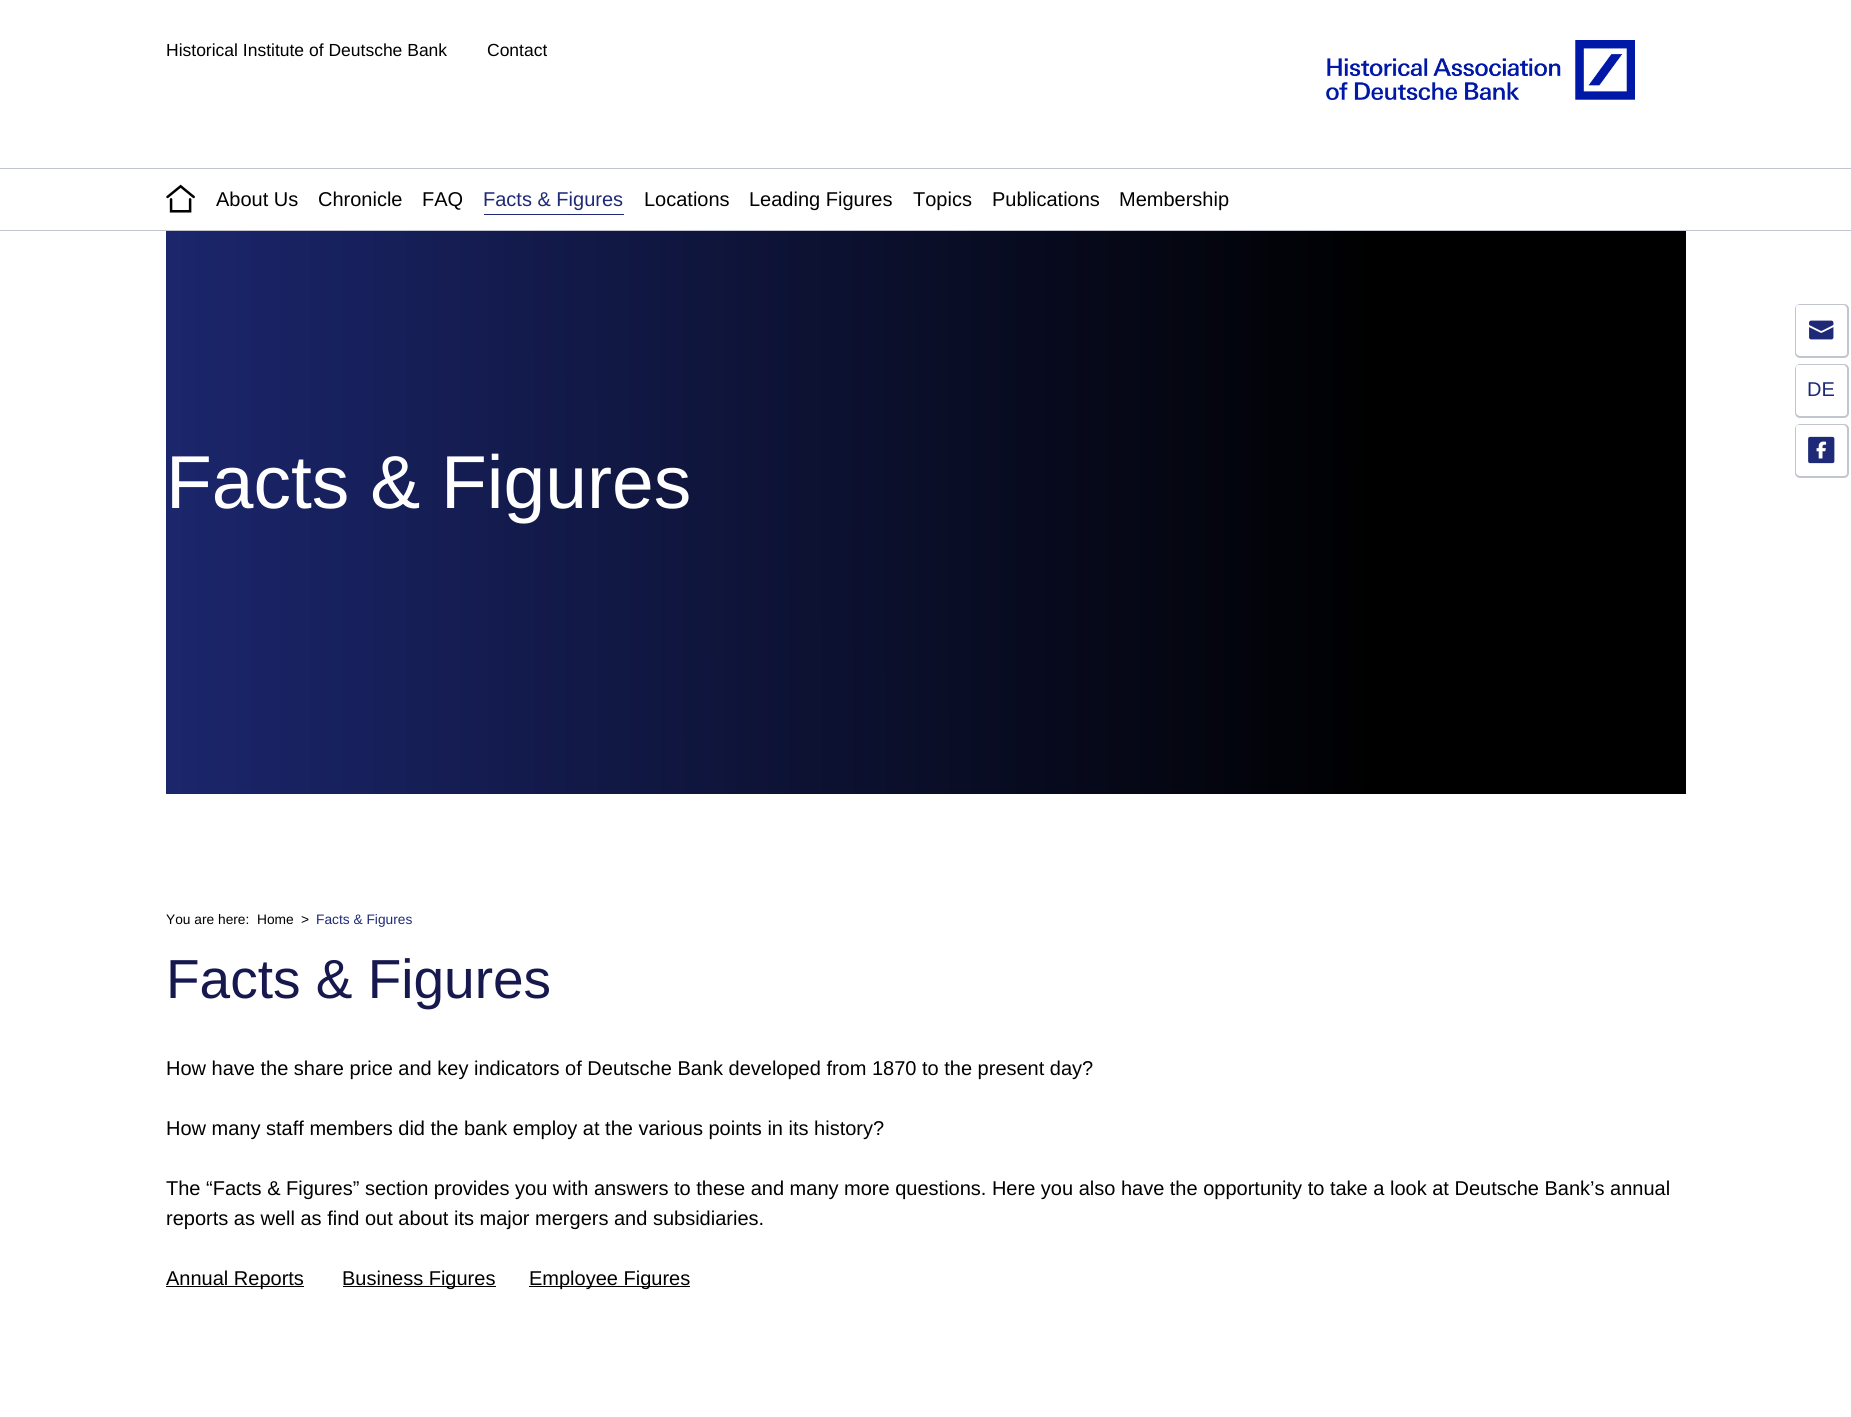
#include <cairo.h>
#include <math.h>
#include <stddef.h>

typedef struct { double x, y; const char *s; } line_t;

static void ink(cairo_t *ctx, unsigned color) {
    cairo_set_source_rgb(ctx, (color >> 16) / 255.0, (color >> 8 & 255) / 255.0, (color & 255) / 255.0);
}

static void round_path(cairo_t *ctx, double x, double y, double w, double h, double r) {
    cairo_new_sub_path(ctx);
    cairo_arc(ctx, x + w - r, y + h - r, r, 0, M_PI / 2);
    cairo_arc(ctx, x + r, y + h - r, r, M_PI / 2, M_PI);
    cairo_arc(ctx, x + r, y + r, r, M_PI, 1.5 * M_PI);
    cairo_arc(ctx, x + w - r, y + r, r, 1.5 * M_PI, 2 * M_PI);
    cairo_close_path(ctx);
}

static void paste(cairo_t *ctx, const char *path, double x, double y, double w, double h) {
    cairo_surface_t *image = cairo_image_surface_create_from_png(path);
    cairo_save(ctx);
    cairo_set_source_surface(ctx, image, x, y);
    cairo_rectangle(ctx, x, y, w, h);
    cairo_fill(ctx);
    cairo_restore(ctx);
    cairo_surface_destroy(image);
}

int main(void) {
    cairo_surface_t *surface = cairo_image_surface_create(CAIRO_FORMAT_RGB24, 1851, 1417);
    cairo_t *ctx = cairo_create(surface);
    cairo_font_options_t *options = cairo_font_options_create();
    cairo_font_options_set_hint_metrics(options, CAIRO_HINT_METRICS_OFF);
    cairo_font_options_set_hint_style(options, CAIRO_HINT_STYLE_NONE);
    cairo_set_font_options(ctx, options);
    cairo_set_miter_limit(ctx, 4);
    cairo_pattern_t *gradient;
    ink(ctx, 0xFFFFFF);
    cairo_paint(ctx);
    cairo_select_font_face(ctx, "Liberation Sans", CAIRO_FONT_SLANT_NORMAL, CAIRO_FONT_WEIGHT_NORMAL);
    cairo_set_font_size(ctx, 17.5);
    ink(ctx, 0x000000);
    cairo_move_to(ctx, 166, 56);
    cairo_show_text(ctx, "Historical Institute of Deutsche Bank");
    cairo_move_to(ctx, 487, 56);
    cairo_show_text(ctx, "Contact");
    paste(ctx, "media/1.png", 1326, 40, 309, 60);
    ink(ctx, 0xC1C6CE);
    cairo_rectangle(ctx, 0, 168, 1851, 1);
    cairo_fill(ctx);
    cairo_rectangle(ctx, 0, 230, 1851, 1);
    cairo_fill(ctx);
    paste(ctx, "media/2.png", 166, 184, 29, 29);
    cairo_set_font_size(ctx, 20);
    ink(ctx, 0x000000);
    {
        static const line_t items[] = {
            {216, 206, "About Us"},
            {318, 206, "Chronicle"},
            {422, 206, "FAQ"},
        };
        for (size_t i = 0; i < sizeof items / sizeof *items; i++) {
            cairo_move_to(ctx, items[i].x, items[i].y);
            cairo_show_text(ctx, items[i].s);
        }
    }
    ink(ctx, 0x1E2A78);
    cairo_move_to(ctx, 483, 206);
    cairo_show_text(ctx, "Facts & Figures");
    cairo_rectangle(ctx, 484, 214, 140, 1);
    cairo_fill(ctx);
    ink(ctx, 0x000000);
    {
        static const line_t items[] = {
            {644, 206, "Locations"},
            {749, 206, "Leading Figures"},
            {913, 206, "Topics"},
            {992, 206, "Publications"},
            {1119, 206, "Membership"},
        };
        for (size_t i = 0; i < sizeof items / sizeof *items; i++) {
            cairo_move_to(ctx, items[i].x, items[i].y);
            cairo_show_text(ctx, items[i].s);
        }
    }
    round_path(ctx, 1796, 305, 52, 52, 4);
    ink(ctx, 0xC1C6CE);
    cairo_stroke(ctx);
    ink(ctx, 0xFFFFFF);
    round_path(ctx, 1796, 305, 50, 50, 2.5);
    cairo_fill(ctx);
    paste(ctx, "media/3.png", 1809, 320, 25, 20);
    round_path(ctx, 1796, 365, 52, 52, 4);
    ink(ctx, 0xC1C6CE);
    cairo_stroke(ctx);
    ink(ctx, 0xFFFFFF);
    round_path(ctx, 1796, 365, 50, 50, 2.5);
    cairo_fill(ctx);
    ink(ctx, 0x1E2A78);
    cairo_move_to(ctx, 1807, 396);
    cairo_show_text(ctx, "DE");
    round_path(ctx, 1796, 425, 52, 52, 4);
    ink(ctx, 0xC1C6CE);
    cairo_stroke(ctx);
    ink(ctx, 0xFFFFFF);
    round_path(ctx, 1796, 425, 50, 50, 2.5);
    cairo_fill(ctx);
    paste(ctx, "media/4.png", 1808, 436, 27, 28);
    ink(ctx, 0x000000);
    cairo_rectangle(ctx, 1381, 231, 305, 563);
    cairo_fill(ctx);
    gradient = cairo_pattern_create_linear(166, 513, 1381, 512);
    cairo_pattern_add_color_stop_rgba(gradient, 0, 0.106, 0.149, 0.424, 1);
    cairo_pattern_add_color_stop_rgba(gradient, 1, 0, 0, 0, 1);
    cairo_set_source(ctx, gradient);
    cairo_pattern_destroy(gradient);
    cairo_rectangle(ctx, 166, 231, 1215, 563);
    cairo_fill(ctx);
    cairo_set_font_size(ctx, 75);
    ink(ctx, 0xFFFFFF);
    cairo_move_to(ctx, 166, 508);
    cairo_show_text(ctx, "Facts & Figures");
    cairo_set_font_size(ctx, 13.75);
    ink(ctx, 0x000000);
    {
        static const line_t items[] = {
            {166, 924, "You are here:"},
            {257, 924, "Home"},
            {301, 924, ">"},
        };
        for (size_t i = 0; i < sizeof items / sizeof *items; i++) {
            cairo_move_to(ctx, items[i].x, items[i].y);
            cairo_show_text(ctx, items[i].s);
        }
    }
    ink(ctx, 0x1E2A78);
    cairo_move_to(ctx, 316, 924);
    cairo_show_text(ctx, "Facts & Figures");
    cairo_set_font_size(ctx, 55);
    ink(ctx, 0x16184E);
    cairo_move_to(ctx, 166, 998);
    cairo_show_text(ctx, "Facts & Figures");
    cairo_set_font_size(ctx, 20);
    ink(ctx, 0x000000);
    {
        static const line_t items[] = {
            {166, 1075, "How have the share price and key indicators of Deutsche Bank developed from 1870 to the present day?"},
            {166, 1135, "How many staff members did the bank employ at the various points in its history?"},
            {166, 1195, "The “Facts & Figures” section provides you with answers to these and many more questions. Here you also have the opportunity to take a look at Deutsche Bank’s annual"},
            {166, 1225, "reports as well as find out about its major mergers and subsidiaries."},
        };
        for (size_t i = 0; i < sizeof items / sizeof *items; i++) {
            cairo_move_to(ctx, items[i].x, items[i].y);
            cairo_show_text(ctx, items[i].s);
        }
    }
    cairo_rectangle(ctx, 166, 1286, 138, 1);
    cairo_fill(ctx);
    cairo_move_to(ctx, 166, 1285);
    cairo_show_text(ctx, "Annual Reports");
    cairo_rectangle(ctx, 343, 1286, 153, 1);
    cairo_fill(ctx);
    cairo_move_to(ctx, 342, 1285);
    cairo_show_text(ctx, "Business Figures");
    cairo_rectangle(ctx, 529, 1286, 161, 1);
    cairo_fill(ctx);
    cairo_move_to(ctx, 529, 1285);
    cairo_show_text(ctx, "Employee Figures");
    cairo_surface_write_to_png(surface, "image.png");
    cairo_font_options_destroy(options);
    cairo_destroy(ctx);
    cairo_surface_destroy(surface);
    return 0;
}
